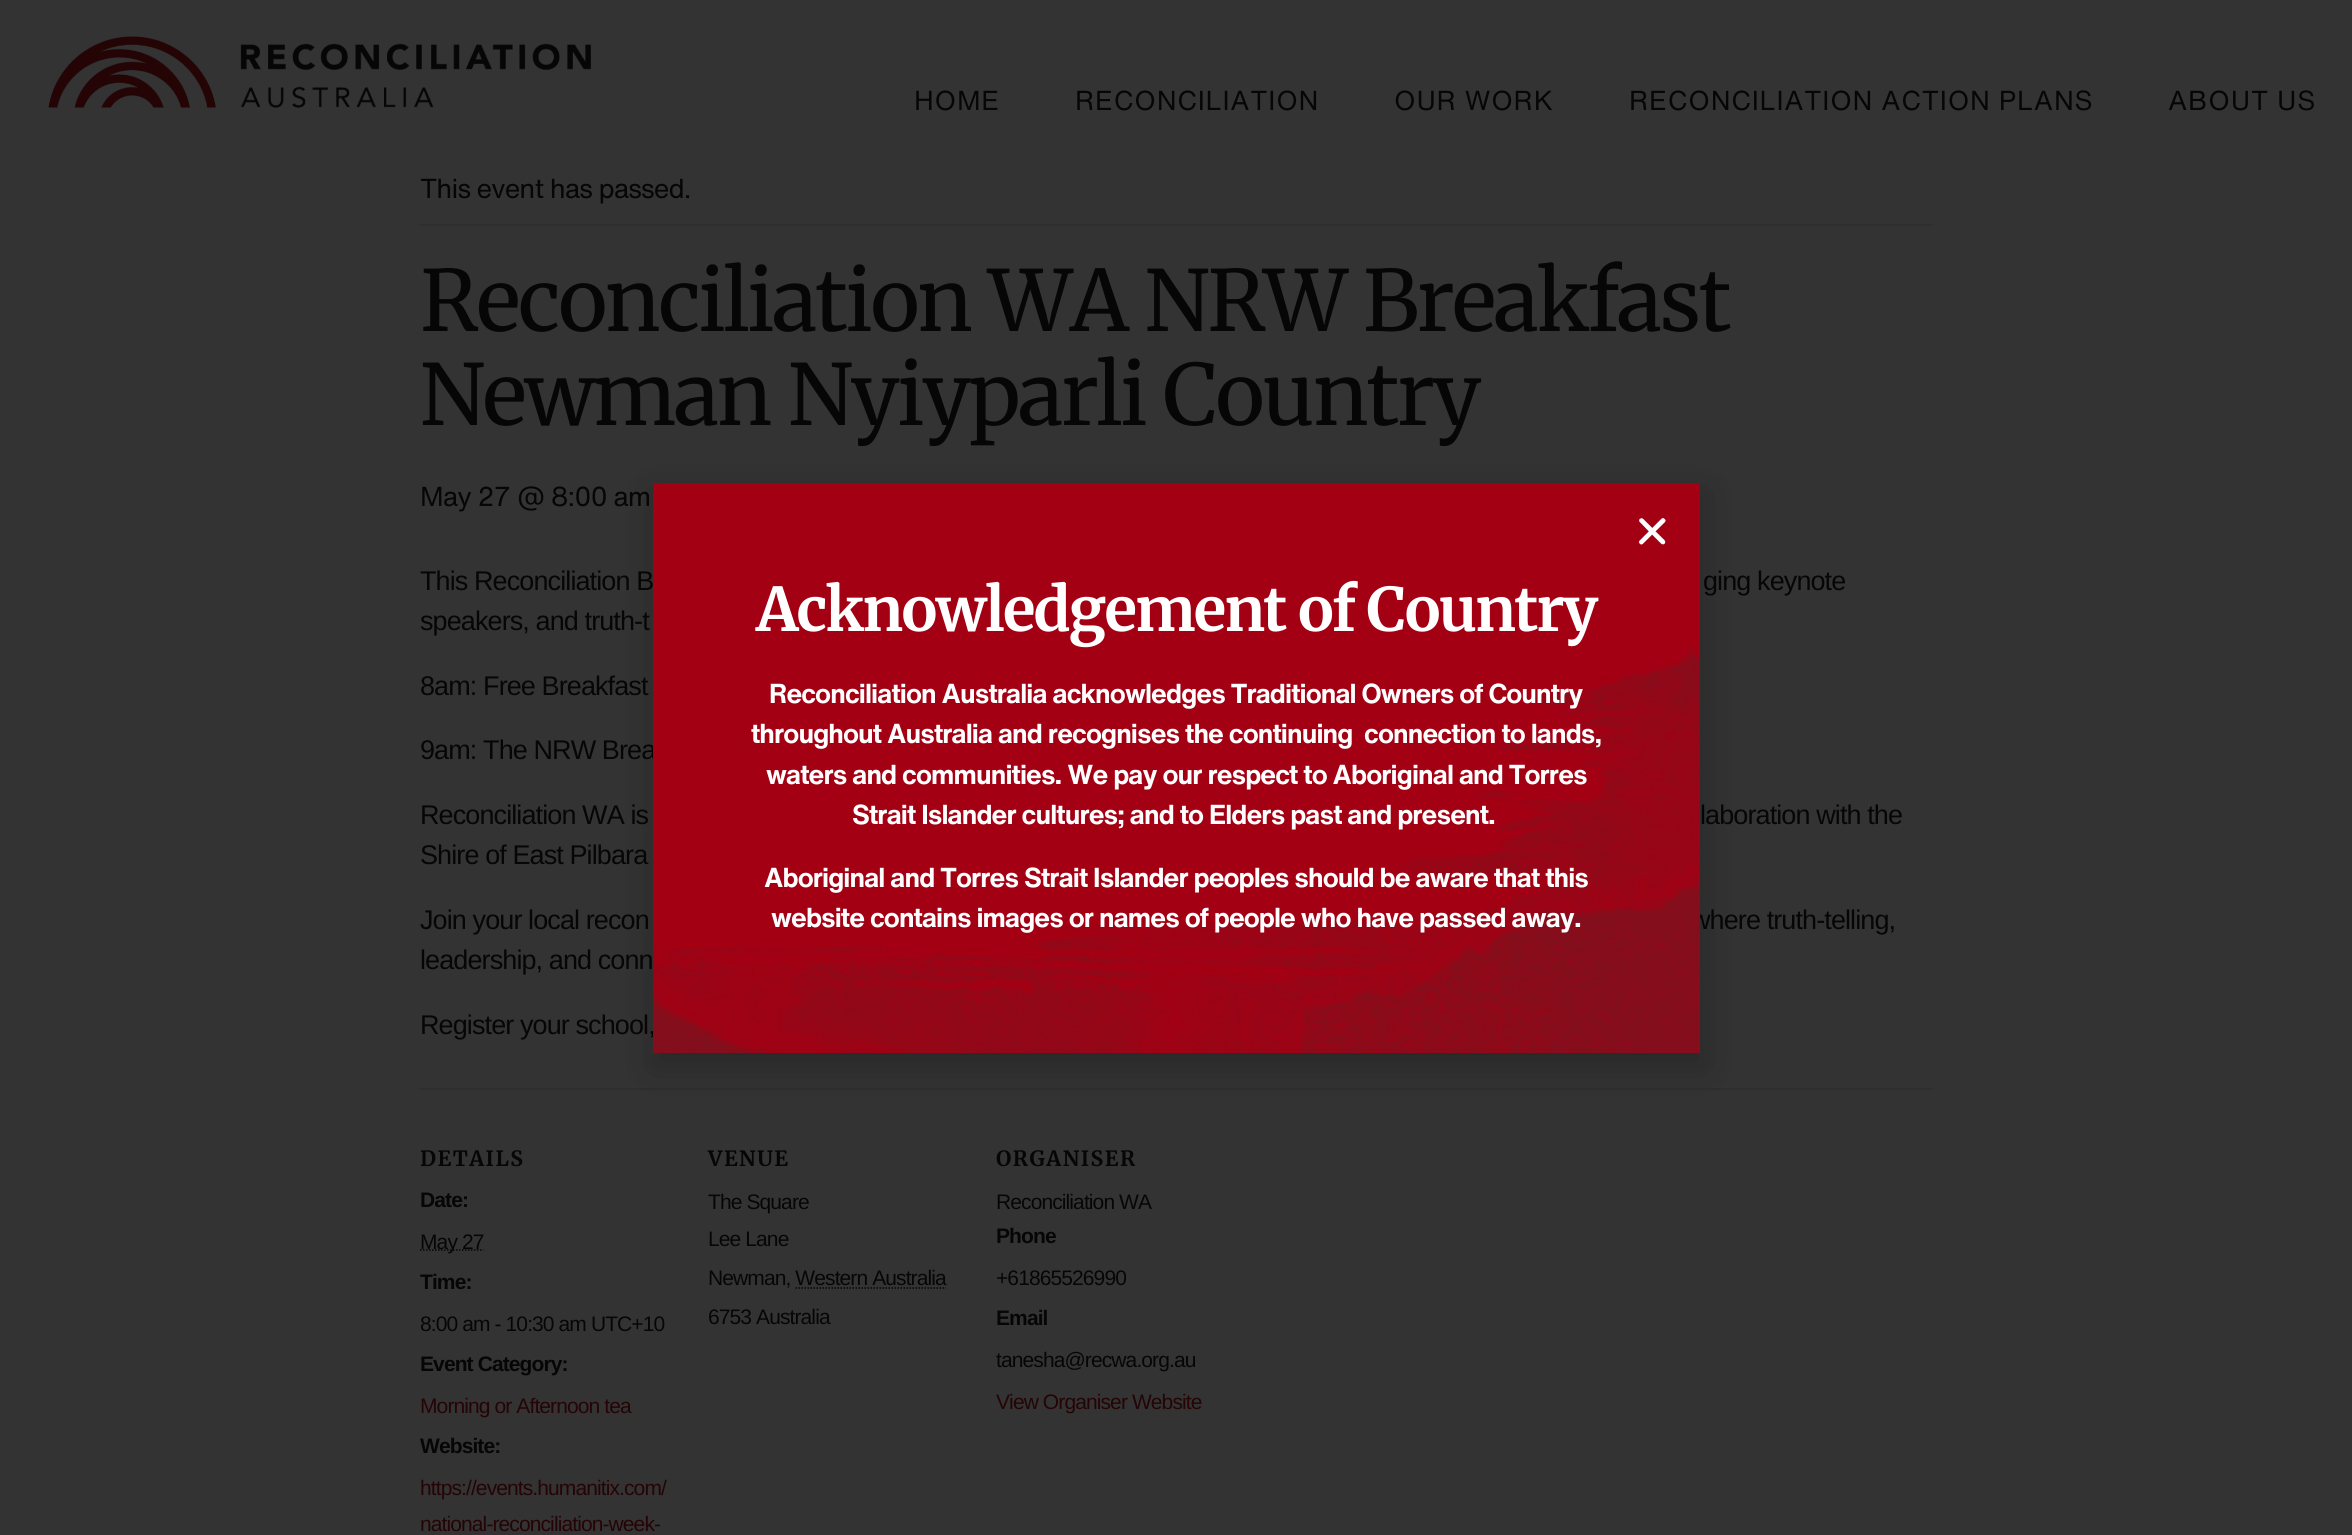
#include <cairo.h>
#include <math.h>
#include <stddef.h>

typedef struct { double x, y; const char *s; } line_t;

static void ink(cairo_t *ctx, unsigned color) {
    cairo_set_source_rgb(ctx, (color >> 16) / 255.0, (color >> 8 & 255) / 255.0, (color & 255) / 255.0);
}

static void write_spaced(cairo_t *ctx, double x, double y, const char *s, double letter, double word) {
    cairo_move_to(ctx, x, y);
    while (*s) {
        char ch[5] = {0};
        int n = 0;
        do ch[n++] = *s++; while ((*s & 0xC0) == 0x80);
        cairo_show_text(ctx, ch);
        cairo_rel_move_to(ctx, letter + word * (*ch == ' '), 0);
    }
}

static void round_path(cairo_t *ctx, double x, double y, double w, double h, double r) {
    cairo_new_sub_path(ctx);
    cairo_arc(ctx, x + w - r, y + h - r, r, 0, M_PI / 2);
    cairo_arc(ctx, x + r, y + h - r, r, M_PI / 2, M_PI);
    cairo_arc(ctx, x + r, y + r, r, M_PI, 1.5 * M_PI);
    cairo_arc(ctx, x + w - r, y + r, r, 1.5 * M_PI, 2 * M_PI);
    cairo_close_path(ctx);
}

static void blur_box(cairo_t *ctx, double x, double y, double w, double h, double r, double blur, double alpha) {
    cairo_push_group_with_content(ctx, CAIRO_CONTENT_ALPHA);
    cairo_set_operator(ctx, CAIRO_OPERATOR_SOURCE);
    for (int i = 15; i >= -15 && fmin(w, h) + blur * i / 3 > 0; i -= 2) {
        double e = blur * i / 6;
        cairo_set_source_rgba(ctx, 0, 0, 0, alpha * erfc((i - 1) / 8.5) / 2);
        round_path(ctx, x - e, y - e, w + 2 * e, h + 2 * e, fmax(0, fmin(r + e + blur * .6, fmin(w, h) / 2 + e)));
        cairo_fill(ctx);
    }
    cairo_pattern_t *soft = cairo_pop_group(ctx);
    cairo_mask(ctx, soft);
    cairo_pattern_destroy(soft);
}

static void paste(cairo_t *ctx, const char *path, double x, double y, double w, double h) {
    cairo_surface_t *image = cairo_image_surface_create_from_png(path);
    cairo_save(ctx);
    cairo_set_source_surface(ctx, image, x, y);
    cairo_rectangle(ctx, x, y, w, h);
    cairo_fill(ctx);
    cairo_restore(ctx);
    cairo_surface_destroy(image);
}

int main(void) {
    cairo_surface_t *surface = cairo_image_surface_create(CAIRO_FORMAT_RGB24, 2352, 1535);
    cairo_t *ctx = cairo_create(surface);
    cairo_font_options_t *options = cairo_font_options_create();
    cairo_font_options_set_hint_metrics(options, CAIRO_HINT_METRICS_OFF);
    cairo_font_options_set_hint_style(options, CAIRO_HINT_STYLE_NONE);
    cairo_set_font_options(ctx, options);
    cairo_set_miter_limit(ctx, 4);
    ink(ctx, 0x333333);
    cairo_paint(ctx);
    paste(ctx, "media/1.png", 48, 36, 543, 72);
    cairo_select_font_face(ctx, "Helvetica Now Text", CAIRO_FONT_SLANT_NORMAL, CAIRO_FONT_WEIGHT_NORMAL);
    cairo_set_font_size(ctx, 27);
    ink(ctx, 0x070606);
    {
        static const line_t items[] = {
            {914, 110, "HOME"},
            {1075, 110, "RECONCILIATION"},
            {1394, 110, "OUR WORK"},
            {1629, 110, "RECONCILIATION ACTION PLANS"},
            {2168, 110, "ABOUT US"},
        };
        for (size_t i = 0; i < sizeof items / sizeof *items; i++) {
            write_spaced(ctx, items[i].x, items[i].y, items[i].s, 0.75, 0);
        }
    }
    ink(ctx, 0x2E2E2E);
    cairo_rectangle(ctx, 420, 224, 1512, 2);
    cairo_fill(ctx);
    ink(ctx, 0x070606);
    write_spaced(ctx, 420, 198, "This event has passed.", -0.9, 0);
    cairo_select_font_face(ctx, "Merriweather", CAIRO_FONT_SLANT_NORMAL, CAIRO_FONT_WEIGHT_NORMAL);
    cairo_set_font_size(ctx, 84);
    write_spaced(ctx, 420, 331, "Reconciliation WA NRW Breakfast", -2.25, 0);
    write_spaced(ctx, 420, 425, "Newman Nyiyparli Country", -2.25, 0);
    cairo_select_font_face(ctx, "Helvetica Now Text", CAIRO_FONT_SLANT_NORMAL, CAIRO_FONT_WEIGHT_NORMAL);
    cairo_set_font_size(ctx, 27);
    write_spaced(ctx, 420, 506, "May 27 @ 8:00 am", -0.9, 0);
    cairo_select_font_face(ctx, "Liberation Sans", CAIRO_FONT_SLANT_NORMAL, CAIRO_FONT_WEIGHT_NORMAL);
    {
        static const line_t items[] = {
            {420, 590, "This Reconciliation B"},
            {1703, 590, "ging keynote"},
            {420, 630, "speakers, and truth-t"},
            {420, 695, "8am: Free Breakfast"},
            {420, 759, "9am: The NRW Brea"},
            {420, 824, "Reconciliation WA is"},
            {1700, 824, "laboration with the"},
            {420, 864, "Shire of East Pilbara"},
            {420, 929, "Join your local recon"},
            {1691, 929, "where truth-telling,"},
            {420, 969, "leadership, and conn"},
            {420, 1034, "Register your school,"},
        };
        for (size_t i = 0; i < sizeof items / sizeof *items; i++) {
            write_spaced(ctx, items[i].x, items[i].y, items[i].s, -0.9, 0);
        }
    }
    ink(ctx, 0x2E2E2E);
    cairo_rectangle(ctx, 420, 1088, 1512, 2);
    cairo_fill(ctx);
    cairo_select_font_face(ctx, "Merriweather", CAIRO_FONT_SLANT_NORMAL, CAIRO_FONT_WEIGHT_BOLD);
    cairo_set_font_size(ctx, 21);
    ink(ctx, 0x070606);
    write_spaced(ctx, 420, 1166, "DETAILS", 1.5, 0);
    cairo_select_font_face(ctx, "Liberation Sans", CAIRO_FONT_SLANT_NORMAL, CAIRO_FONT_WEIGHT_BOLD);
    write_spaced(ctx, 420, 1207, "Date:", -0.9, 0);
    cairo_new_path(ctx);
    cairo_move_to(ctx, 420, 1250);
    cairo_line_to(ctx, 483.5, 1250);
    ink(ctx, 0x040508);
    cairo_set_line_width(ctx, 1.5);
    cairo_set_dash(ctx, (double[]){1.5, 1.5}, 2, 0);
    cairo_stroke(ctx);
    cairo_select_font_face(ctx, "Liberation Sans", CAIRO_FONT_SLANT_NORMAL, CAIRO_FONT_WEIGHT_NORMAL);
    ink(ctx, 0x070606);
    write_spaced(ctx, 420, 1249, "May 27", -0.9, 0);
    cairo_select_font_face(ctx, "Liberation Sans", CAIRO_FONT_SLANT_NORMAL, CAIRO_FONT_WEIGHT_BOLD);
    write_spaced(ctx, 420, 1289, "Time:", -0.9, 0);
    cairo_select_font_face(ctx, "Liberation Sans", CAIRO_FONT_SLANT_NORMAL, CAIRO_FONT_WEIGHT_NORMAL);
    write_spaced(ctx, 420, 1331, "8:00 am - 10:30 am UTC+10", -0.9, 0);
    cairo_select_font_face(ctx, "Liberation Sans", CAIRO_FONT_SLANT_NORMAL, CAIRO_FONT_WEIGHT_BOLD);
    write_spaced(ctx, 420, 1371, "Event Category:", -0.9, 0);
    cairo_select_font_face(ctx, "Liberation Sans", CAIRO_FONT_SLANT_NORMAL, CAIRO_FONT_WEIGHT_NORMAL);
    ink(ctx, 0x240405);
    write_spaced(ctx, 420, 1413, "Morning or Afternoon tea", -0.9, 0);
    cairo_select_font_face(ctx, "Liberation Sans", CAIRO_FONT_SLANT_NORMAL, CAIRO_FONT_WEIGHT_BOLD);
    ink(ctx, 0x070606);
    write_spaced(ctx, 420, 1453, "Website:", -0.9, 0);
    cairo_select_font_face(ctx, "Liberation Sans", CAIRO_FONT_SLANT_NORMAL, CAIRO_FONT_WEIGHT_NORMAL);
    ink(ctx, 0x240405);
    write_spaced(ctx, 420, 1495, "https://events.humanitix.com/", -0.9, 0);
    write_spaced(ctx, 420, 1531, "national-reconciliation-week-", -0.9, 0);
    cairo_select_font_face(ctx, "Merriweather", CAIRO_FONT_SLANT_NORMAL, CAIRO_FONT_WEIGHT_BOLD);
    ink(ctx, 0x070606);
    write_spaced(ctx, 708, 1166, "VENUE", 1.5, 0);
    cairo_select_font_face(ctx, "Liberation Sans", CAIRO_FONT_SLANT_NORMAL, CAIRO_FONT_WEIGHT_NORMAL);
    {
        static const line_t items[] = {
            {708, 1209, "The Square"},
            {708, 1246, "Lee Lane"},
            {708, 1285, "Newman, Western Australia"},
        };
        for (size_t i = 0; i < sizeof items / sizeof *items; i++) {
            write_spaced(ctx, items[i].x, items[i].y, items[i].s, -0.9, 0);
        }
    }
    cairo_new_path(ctx);
    cairo_move_to(ctx, 795.5, 1288);
    cairo_line_to(ctx, 946, 1288);
    ink(ctx, 0x040508);
    cairo_stroke(ctx);
    ink(ctx, 0x070606);
    write_spaced(ctx, 708, 1324, "6753 Australia", -0.9, 0);
    cairo_select_font_face(ctx, "Merriweather", CAIRO_FONT_SLANT_NORMAL, CAIRO_FONT_WEIGHT_BOLD);
    write_spaced(ctx, 996, 1166, "ORGANISER", 1.5, 0);
    cairo_select_font_face(ctx, "Liberation Sans", CAIRO_FONT_SLANT_NORMAL, CAIRO_FONT_WEIGHT_NORMAL);
    write_spaced(ctx, 996, 1209, "Reconciliation WA", -0.9, 0);
    cairo_select_font_face(ctx, "Liberation Sans", CAIRO_FONT_SLANT_NORMAL, CAIRO_FONT_WEIGHT_BOLD);
    write_spaced(ctx, 996, 1243, "Phone", -0.9, 0);
    cairo_select_font_face(ctx, "Liberation Sans", CAIRO_FONT_SLANT_NORMAL, CAIRO_FONT_WEIGHT_NORMAL);
    write_spaced(ctx, 996, 1285, "+61865526990", -0.9, 0);
    cairo_select_font_face(ctx, "Liberation Sans", CAIRO_FONT_SLANT_NORMAL, CAIRO_FONT_WEIGHT_BOLD);
    write_spaced(ctx, 996, 1325, "Email", -0.9, 0);
    cairo_select_font_face(ctx, "Liberation Sans", CAIRO_FONT_SLANT_NORMAL, CAIRO_FONT_WEIGHT_NORMAL);
    write_spaced(ctx, 996, 1367, "tanesha@recwa.org.au", -0.9, 0);
    ink(ctx, 0x240405);
    write_spaced(ctx, 996, 1409, "View Organiser Website", -0.9, 0);
    ink(ctx, 0x000000);
    blur_box(ctx, 651, 491, 1056, 579, 0, 17, 0.2);
    ink(ctx, 0xA30013);
    cairo_rectangle(ctx, 653, 483, 1047, 164);
    cairo_fill(ctx);
    paste(ctx, "media/2.png", 653, 647, 1047, 406);
    paste(ctx, "media/3.png", 1639, 518, 27, 27);
    cairo_select_font_face(ctx, "Merriweather", CAIRO_FONT_SLANT_NORMAL, CAIRO_FONT_WEIGHT_BOLD);
    cairo_set_font_size(ctx, 60);
    ink(ctx, 0xFFFFFF);
    write_spaced(ctx, 756, 631, "Acknowledgement of Country", -1.8, 0);
    cairo_select_font_face(ctx, "Helvetica Now Text", CAIRO_FONT_SLANT_NORMAL, CAIRO_FONT_WEIGHT_BOLD);
    cairo_set_font_size(ctx, 27);
    {
        static const line_t items[] = {
            {769, 703, "Reconciliation Australia acknowledges Traditional Owners of Country"},
            {751, 743, "throughout Australia and recognises the continuing  connection to lands,"},
            {766, 784, "waters and communities. We pay our respect to Aboriginal and Torres"},
            {852, 824, "Strait Islander cultures; and to Elders past and present."},
            {764, 887, "Aboriginal and Torres Strait Islander peoples should be aware that this"},
            {771, 927, "website contains images or names of people who have passed away."},
        };
        for (size_t i = 0; i < sizeof items / sizeof *items; i++) {
            write_spaced(ctx, items[i].x, items[i].y, items[i].s, -0.9, 0);
        }
    }
    cairo_surface_write_to_png(surface, "image.png");
    cairo_font_options_destroy(options);
    cairo_destroy(ctx);
    cairo_surface_destroy(surface);
    return 0;
}
